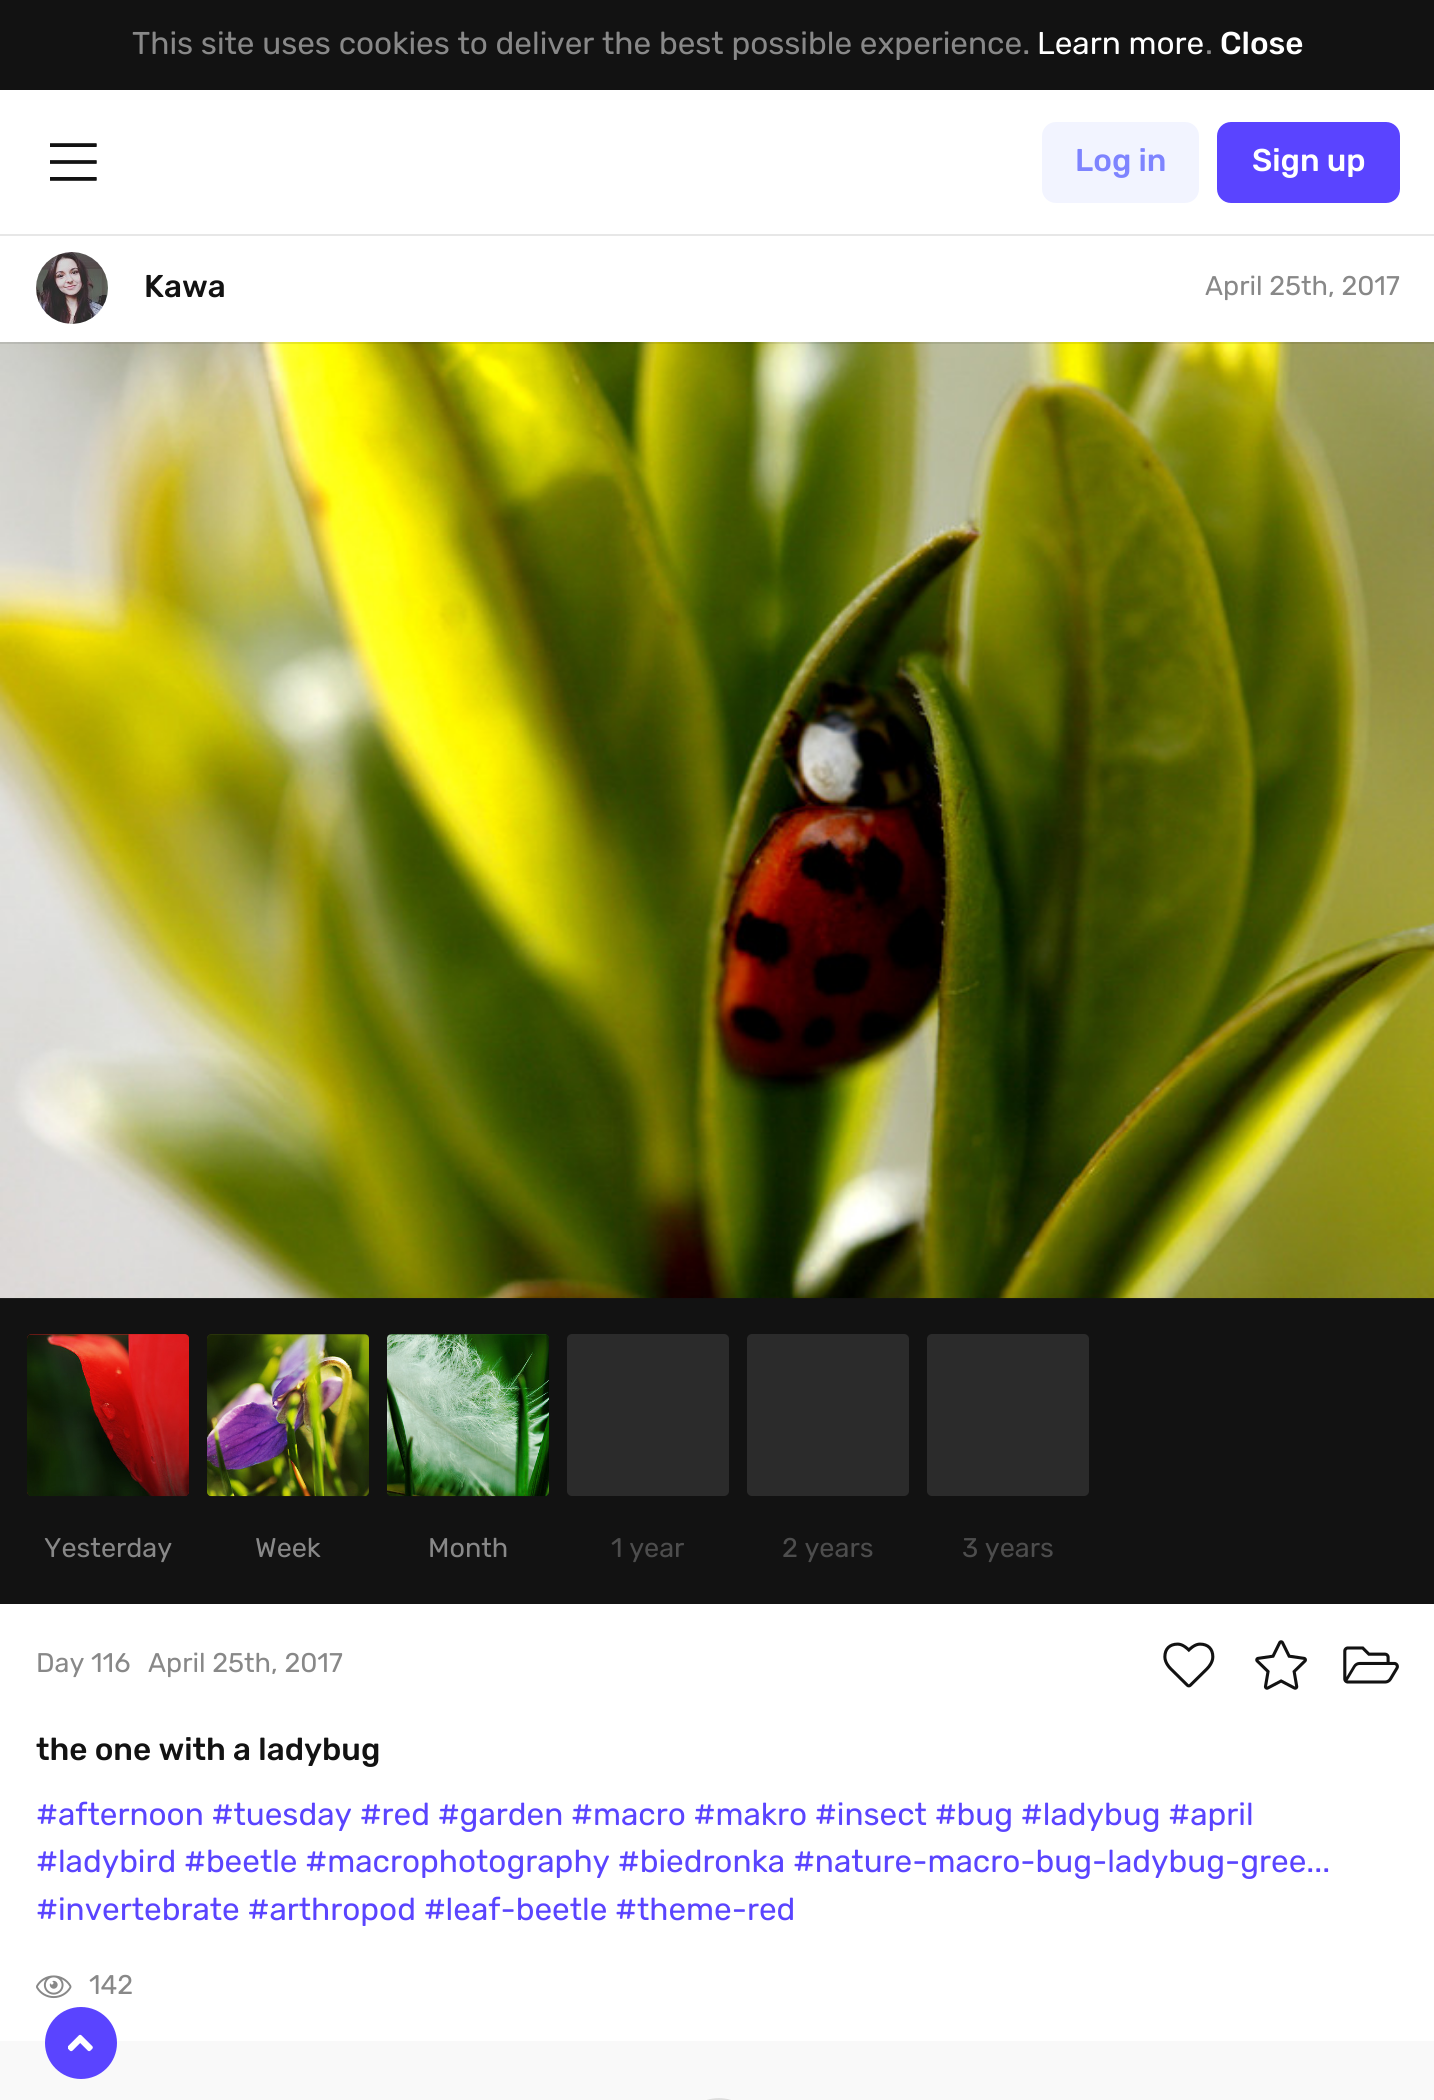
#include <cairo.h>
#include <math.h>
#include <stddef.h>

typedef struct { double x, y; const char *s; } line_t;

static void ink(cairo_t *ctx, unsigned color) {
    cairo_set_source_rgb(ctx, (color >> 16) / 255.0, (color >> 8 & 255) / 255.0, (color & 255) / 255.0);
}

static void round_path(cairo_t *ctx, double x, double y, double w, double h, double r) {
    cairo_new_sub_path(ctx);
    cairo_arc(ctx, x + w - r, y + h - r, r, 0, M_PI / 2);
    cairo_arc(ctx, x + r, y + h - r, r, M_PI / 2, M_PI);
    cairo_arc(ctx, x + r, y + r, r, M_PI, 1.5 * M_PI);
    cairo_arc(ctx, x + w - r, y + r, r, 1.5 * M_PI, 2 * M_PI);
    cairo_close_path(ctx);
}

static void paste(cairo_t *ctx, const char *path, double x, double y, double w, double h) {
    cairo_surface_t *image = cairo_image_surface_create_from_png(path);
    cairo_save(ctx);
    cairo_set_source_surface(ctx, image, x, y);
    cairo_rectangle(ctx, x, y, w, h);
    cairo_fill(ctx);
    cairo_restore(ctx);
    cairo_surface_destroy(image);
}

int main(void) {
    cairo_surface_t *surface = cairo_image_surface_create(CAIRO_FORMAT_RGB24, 1434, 2100);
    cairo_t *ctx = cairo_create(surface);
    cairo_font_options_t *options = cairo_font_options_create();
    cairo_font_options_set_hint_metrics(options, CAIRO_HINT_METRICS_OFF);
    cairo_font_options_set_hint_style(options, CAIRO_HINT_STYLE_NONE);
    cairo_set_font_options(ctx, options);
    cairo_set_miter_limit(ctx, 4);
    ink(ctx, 0xFFFFFF);
    cairo_paint(ctx);
    ink(ctx, 0x121212);
    cairo_rectangle(ctx, 0, 0, 1434, 90);
    cairo_fill(ctx);
    cairo_select_font_face(ctx, "Rubik", CAIRO_FONT_SLANT_NORMAL, CAIRO_FONT_WEIGHT_NORMAL);
    cairo_set_font_size(ctx, 31.5);
    ink(ctx, 0x888888);
    cairo_move_to(ctx, 132, 54);
    cairo_show_text(ctx, "This site uses cookies to deliver the best possible experience.");
    ink(ctx, 0xFFFFFF);
    cairo_move_to(ctx, 1037, 54);
    cairo_show_text(ctx, "Learn more");
    ink(ctx, 0x888888);
    cairo_move_to(ctx, 1205, 54);
    cairo_show_text(ctx, ".");
    cairo_select_font_face(ctx, "Rubik Medium", CAIRO_FONT_SLANT_NORMAL, CAIRO_FONT_WEIGHT_NORMAL);
    ink(ctx, 0xFFFFFF);
    cairo_move_to(ctx, 1220, 54);
    cairo_show_text(ctx, "Close");
    ink(ctx, 0xE7E7E7);
    cairo_new_path(ctx);
    cairo_move_to(ctx, 0, 234);
    cairo_line_to(ctx, 0, 236);
    cairo_line_to(ctx, 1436, 236);
    cairo_line_to(ctx, 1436, 92);
    cairo_line_to(ctx, 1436, 234);
    cairo_close_path(ctx);
    cairo_fill(ctx);
    paste(ctx, "media/1.png", 50, 143, 47, 38);
    ink(ctx, 0xF2F4FF);
    round_path(ctx, 1042, 122, 157, 81, 14);
    cairo_fill(ctx);
    ink(ctx, 0x7E84FF);
    cairo_move_to(ctx, 1075, 171);
    cairo_show_text(ctx, "Log in");
    ink(ctx, 0x5A44FF);
    round_path(ctx, 1217, 122, 183, 81, 14);
    cairo_fill(ctx);
    ink(ctx, 0xFFFFFF);
    cairo_move_to(ctx, 1252, 171);
    cairo_show_text(ctx, "Sign up");
    ink(ctx, 0x121212);
    cairo_rectangle(ctx, 0, 1298, 1434, 306);
    cairo_fill(ctx);
    paste(ctx, "media/3.png", 0, 342, 1434, 957);
    cairo_set_source_rgba(ctx, 0.071, 0.071, 0.071, 0.1);
    cairo_new_path(ctx);
    cairo_move_to(ctx, 0, 342);
    cairo_line_to(ctx, 0, 344);
    cairo_line_to(ctx, 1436, 344);
    cairo_line_to(ctx, 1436, 236);
    cairo_line_to(ctx, 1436, 342);
    cairo_close_path(ctx);
    cairo_fill(ctx);
    ink(ctx, 0xF5F5F5);
    cairo_arc(ctx, 72, 288, 36, 0, 2 * M_PI);
    cairo_fill(ctx);
    paste(ctx, "media/2.png", 36, 252, 72, 72);
    ink(ctx, 0x121212);
    cairo_move_to(ctx, 144, 297);
    cairo_show_text(ctx, "Kawa");
    cairo_select_font_face(ctx, "Rubik", CAIRO_FONT_SLANT_NORMAL, CAIRO_FONT_WEIGHT_NORMAL);
    cairo_set_font_size(ctx, 27);
    ink(ctx, 0x888888);
    cairo_move_to(ctx, 1205, 295);
    cairo_show_text(ctx, "April 25th, 2017");
    ink(ctx, 0xD31E1B);
    round_path(ctx, 27, 1334, 162, 162, 5);
    cairo_fill(ctx);
    paste(ctx, "media/4.png", 27, 1334, 162, 163);
    ink(ctx, 0x888888);
    cairo_move_to(ctx, 44, 1557);
    cairo_show_text(ctx, "Yesterday");
    ink(ctx, 0x3D4812);
    round_path(ctx, 207, 1334, 162, 162, 5);
    cairo_fill(ctx);
    paste(ctx, "media/5.png", 207, 1334, 162, 163);
    ink(ctx, 0x888888);
    cairo_move_to(ctx, 255, 1557);
    cairo_show_text(ctx, "Week");
    ink(ctx, 0x205116);
    round_path(ctx, 387, 1334, 162, 162, 5);
    cairo_fill(ctx);
    paste(ctx, "media/6.png", 387, 1334, 162, 163);
    ink(ctx, 0x888888);
    cairo_move_to(ctx, 428, 1557);
    cairo_show_text(ctx, "Month");
    ink(ctx, 0x2B2B2B);
    round_path(ctx, 567, 1334, 162, 162, 5);
    cairo_fill(ctx);
    ink(ctx, 0x4D4D4D);
    cairo_move_to(ctx, 611, 1557);
    cairo_show_text(ctx, "1 year");
    ink(ctx, 0x2B2B2B);
    round_path(ctx, 747, 1334, 162, 162, 5);
    cairo_fill(ctx);
    ink(ctx, 0x4D4D4D);
    cairo_move_to(ctx, 782, 1557);
    cairo_show_text(ctx, "2 years");
    ink(ctx, 0x2B2B2B);
    round_path(ctx, 927, 1334, 162, 162, 5);
    cairo_fill(ctx);
    ink(ctx, 0x4D4D4D);
    cairo_move_to(ctx, 962, 1557);
    cairo_show_text(ctx, "3 years");
    ink(ctx, 0x888888);
    cairo_move_to(ctx, 36, 1672);
    cairo_show_text(ctx, "Day 116");
    cairo_move_to(ctx, 148, 1672);
    cairo_show_text(ctx, "April 25th, 2017");
    paste(ctx, "media/7.png", 1163, 1642, 52, 46);
    paste(ctx, "media/8.png", 1255, 1640, 52, 50);
    paste(ctx, "media/9.png", 1343, 1646, 56, 38);
    cairo_select_font_face(ctx, "Rubik Medium", CAIRO_FONT_SLANT_NORMAL, CAIRO_FONT_WEIGHT_NORMAL);
    cairo_set_font_size(ctx, 31.5);
    ink(ctx, 0x121212);
    cairo_move_to(ctx, 36, 1760);
    cairo_show_text(ctx, "the one with a ladybug");
    cairo_select_font_face(ctx, "Rubik", CAIRO_FONT_SLANT_NORMAL, CAIRO_FONT_WEIGHT_NORMAL);
    ink(ctx, 0x5A44FF);
    {
        static const line_t items[] = {
            {36, 1825, "#afternoon #tuesday #red #garden #macro #makro #insect #bug #ladybug #april"},
            {36, 1872, "#ladybird #beetle #macrophotography #biedronka #nature-macro-bug-ladybug-gree..."},
            {36, 1920, "#invertebrate #arthropod #leaf-beetle #theme-red"},
        };
        for (size_t i = 0; i < sizeof items / sizeof *items; i++) {
            cairo_move_to(ctx, items[i].x, items[i].y);
            cairo_show_text(ctx, items[i].s);
        }
    }
    paste(ctx, "media/10.png", 36, 1975, 36, 24);
    cairo_set_font_size(ctx, 27);
    ink(ctx, 0x888888);
    cairo_move_to(ctx, 89, 1994);
    cairo_show_text(ctx, "142");
    ink(ctx, 0xF9F9F9);
    cairo_rectangle(ctx, 0, 2041, 1434, 59);
    cairo_fill(ctx);
    paste(ctx, "media/11.png", 707, 2098, 24, 2);
    ink(ctx, 0x5A44FF);
    cairo_arc(ctx, 81, 2043, 36, 0, 2 * M_PI);
    cairo_fill(ctx);
    paste(ctx, "media/12.png", 68, 2034, 25, 18);
    cairo_surface_write_to_png(surface, "image.png");
    cairo_font_options_destroy(options);
    cairo_destroy(ctx);
    cairo_surface_destroy(surface);
    return 0;
}
